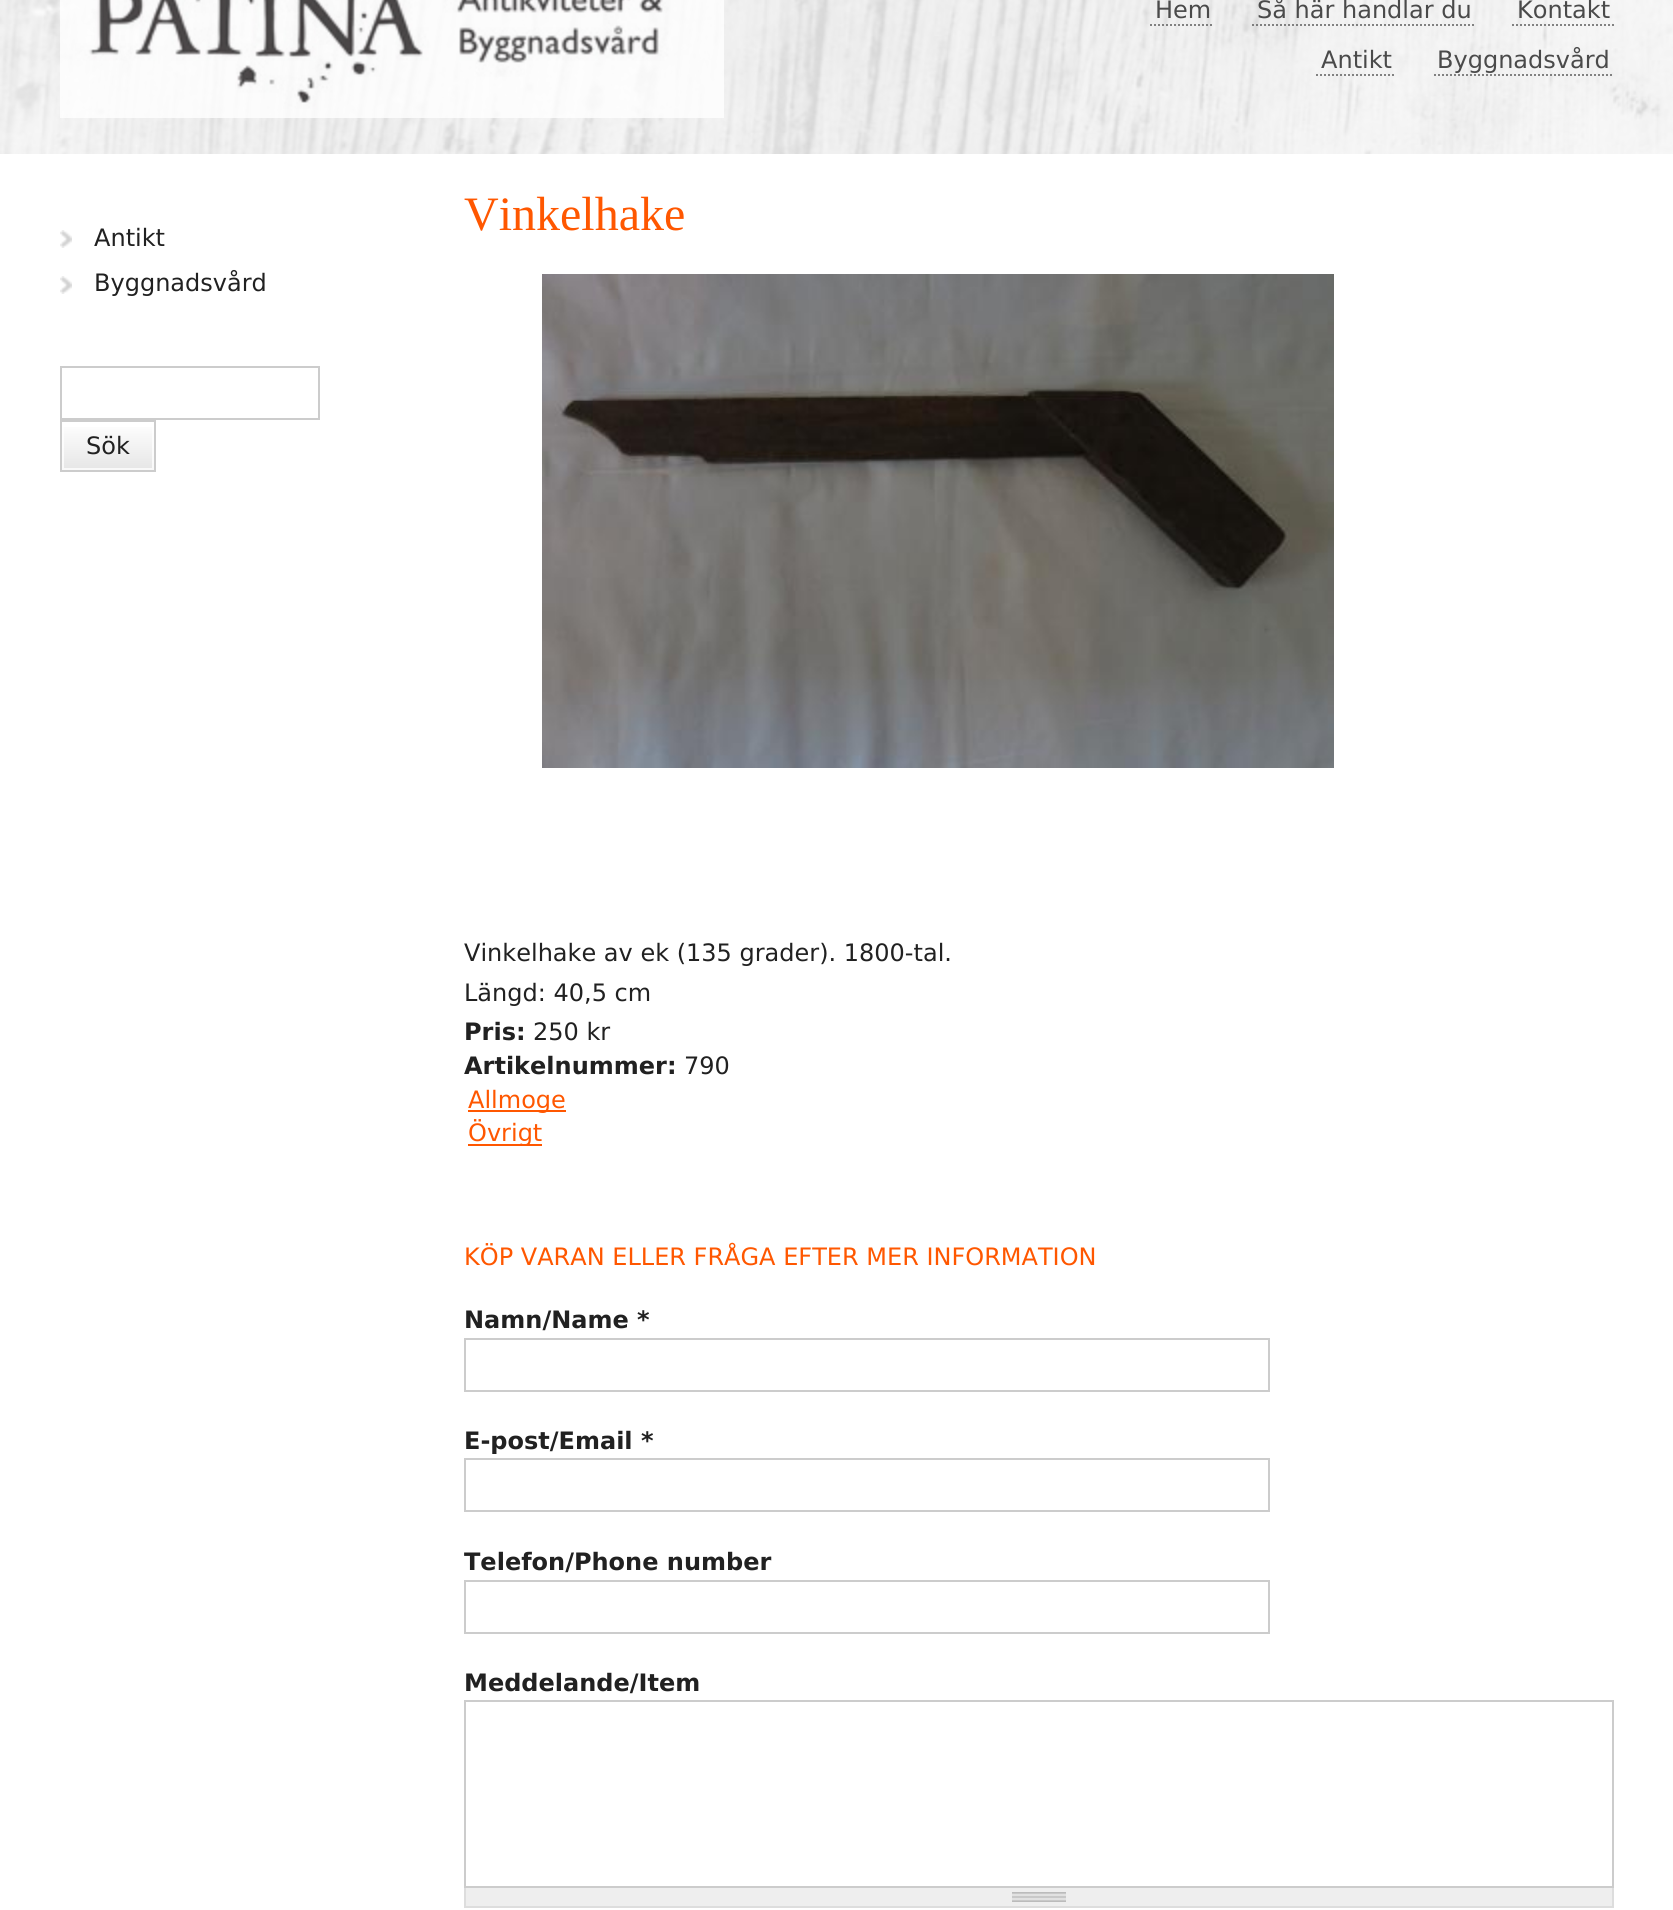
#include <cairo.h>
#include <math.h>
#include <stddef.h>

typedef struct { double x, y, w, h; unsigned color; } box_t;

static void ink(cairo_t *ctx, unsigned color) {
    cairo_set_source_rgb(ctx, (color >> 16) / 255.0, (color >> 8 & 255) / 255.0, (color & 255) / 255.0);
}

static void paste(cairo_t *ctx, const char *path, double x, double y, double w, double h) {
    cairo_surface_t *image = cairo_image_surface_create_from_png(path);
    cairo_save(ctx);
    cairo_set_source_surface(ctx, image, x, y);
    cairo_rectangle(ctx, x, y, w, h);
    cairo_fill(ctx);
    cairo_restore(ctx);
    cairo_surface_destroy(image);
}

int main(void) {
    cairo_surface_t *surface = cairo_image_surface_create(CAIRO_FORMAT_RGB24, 1673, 1910);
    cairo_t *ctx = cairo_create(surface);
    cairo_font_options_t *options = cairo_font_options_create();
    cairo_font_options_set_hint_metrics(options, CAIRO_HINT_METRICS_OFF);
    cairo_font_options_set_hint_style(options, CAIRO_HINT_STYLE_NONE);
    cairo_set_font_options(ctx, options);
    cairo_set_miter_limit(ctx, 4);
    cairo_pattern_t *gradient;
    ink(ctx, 0xFFFFFF);
    cairo_paint(ctx);
    paste(ctx, "media/1.png", 0, 0, 1673, 154);
    cairo_set_source_rgba(ctx, 1, 1, 1, 0.8);
    cairo_rectangle(ctx, 0, 0, 1673, 154);
    cairo_fill(ctx);
    paste(ctx, "media/2.png", 60, 0, 664, 118);
    cairo_select_font_face(ctx, "DejaVu Sans", CAIRO_FONT_SLANT_NORMAL, CAIRO_FONT_WEIGHT_NORMAL);
    cairo_set_font_size(ctx, 24);
    ink(ctx, 0x4A4A4A);
    cairo_move_to(ctx, 1155, 18);
    cairo_show_text(ctx, "Hem");
    cairo_new_path(ctx);
    cairo_move_to(ctx, 1150, 25);
    cairo_line_to(ctx, 1214, 25);
    cairo_set_source_rgba(ctx, 0.4, 0.4, 0.4, 0.8);
    cairo_set_dash(ctx, (double[]){2, 2}, 2, 0);
    cairo_stroke(ctx);
    ink(ctx, 0x4A4A4A);
    cairo_move_to(ctx, 1257, 18);
    cairo_show_text(ctx, "Så här handlar du");
    cairo_new_path(ctx);
    cairo_move_to(ctx, 1252, 25);
    cairo_line_to(ctx, 1476, 25);
    cairo_set_source_rgba(ctx, 0.4, 0.4, 0.4, 0.8);
    cairo_stroke(ctx);
    ink(ctx, 0x4A4A4A);
    cairo_move_to(ctx, 1517, 18);
    cairo_show_text(ctx, "Kontakt");
    cairo_new_path(ctx);
    cairo_move_to(ctx, 1512, 25);
    cairo_line_to(ctx, 1614, 25);
    cairo_set_source_rgba(ctx, 0.4, 0.4, 0.4, 0.8);
    cairo_stroke(ctx);
    ink(ctx, 0x4A4A4A);
    cairo_move_to(ctx, 1321, 68);
    cairo_show_text(ctx, "Antikt");
    cairo_new_path(ctx);
    cairo_move_to(ctx, 1316, 75);
    cairo_line_to(ctx, 1396, 75);
    cairo_set_source_rgba(ctx, 0.4, 0.4, 0.4, 0.8);
    cairo_stroke(ctx);
    ink(ctx, 0x4A4A4A);
    cairo_move_to(ctx, 1437, 68);
    cairo_show_text(ctx, "Byggnadsvård");
    cairo_new_path(ctx);
    cairo_move_to(ctx, 1434, 75);
    cairo_line_to(ctx, 1614, 75);
    cairo_set_source_rgba(ctx, 0.4, 0.4, 0.4, 0.8);
    cairo_stroke(ctx);
    paste(ctx, "media/3.png", 60, 230, 12, 18);
    ink(ctx, 0x212121);
    cairo_move_to(ctx, 94, 246);
    cairo_show_text(ctx, "Antikt");
    paste(ctx, "media/3.png", 60, 276, 12, 18);
    cairo_move_to(ctx, 94, 291);
    cairo_show_text(ctx, "Byggnadsvård");
    cairo_rectangle(ctx, 61, 367, 258, 52);
    ink(ctx, 0xCCCCCC);
    cairo_set_dash(ctx, NULL, 0, 0);
    cairo_stroke(ctx);
    gradient = cairo_pattern_create_linear(108, 422, 108, 470);
    cairo_pattern_add_color_stop_rgba(gradient, 0, 1, 1, 1, 1);
    cairo_pattern_add_color_stop_rgba(gradient, 1, 0.902, 0.902, 0.902, 1);
    cairo_set_source(ctx, gradient);
    cairo_pattern_destroy(gradient);
    cairo_rectangle(ctx, 62, 427, 92, 43);
    cairo_fill(ctx);
    cairo_rectangle(ctx, 63, 423, 90, 46);
    cairo_set_source_rgba(ctx, 1, 1, 1, 0.75);
    cairo_stroke(ctx);
    cairo_rectangle(ctx, 61, 421, 94, 50);
    ink(ctx, 0xCCCCCC);
    cairo_stroke(ctx);
    ink(ctx, 0x212121);
    cairo_move_to(ctx, 86, 454);
    cairo_show_text(ctx, "Sök");
    cairo_select_font_face(ctx, "Liberation Serif", CAIRO_FONT_SLANT_NORMAL, CAIRO_FONT_WEIGHT_NORMAL);
    cairo_set_font_size(ctx, 48);
    ink(ctx, 0xFF5700);
    cairo_move_to(ctx, 464, 230);
    cairo_show_text(ctx, "Vinkelhake");
    paste(ctx, "media/4.png", 542, 274, 792, 494);
    cairo_select_font_face(ctx, "DejaVu Sans", CAIRO_FONT_SLANT_NORMAL, CAIRO_FONT_WEIGHT_NORMAL);
    cairo_set_font_size(ctx, 24);
    ink(ctx, 0x212121);
    cairo_move_to(ctx, 464, 961);
    cairo_show_text(ctx, "Vinkelhake av ek (135 grader). 1800-tal.");
    cairo_move_to(ctx, 464, 1001);
    cairo_show_text(ctx, "Längd: 40,5 cm");
    cairo_select_font_face(ctx, "DejaVu Sans", CAIRO_FONT_SLANT_NORMAL, CAIRO_FONT_WEIGHT_BOLD);
    cairo_move_to(ctx, 464, 1040);
    cairo_show_text(ctx, "Pris:");
    cairo_select_font_face(ctx, "DejaVu Sans", CAIRO_FONT_SLANT_NORMAL, CAIRO_FONT_WEIGHT_NORMAL);
    cairo_move_to(ctx, 533, 1040);
    cairo_show_text(ctx, "250 kr");
    cairo_select_font_face(ctx, "DejaVu Sans", CAIRO_FONT_SLANT_NORMAL, CAIRO_FONT_WEIGHT_BOLD);
    cairo_move_to(ctx, 464, 1074);
    cairo_show_text(ctx, "Artikelnummer:");
    cairo_select_font_face(ctx, "DejaVu Sans", CAIRO_FONT_SLANT_NORMAL, CAIRO_FONT_WEIGHT_NORMAL);
    cairo_move_to(ctx, 684, 1074);
    cairo_show_text(ctx, "790");
    ink(ctx, 0xFF5700);
    cairo_rectangle(ctx, 468, 1110, 98, 2);
    cairo_fill(ctx);
    cairo_move_to(ctx, 468, 1108);
    cairo_show_text(ctx, "Allmoge");
    cairo_rectangle(ctx, 468, 1144, 74, 2);
    cairo_fill(ctx);
    cairo_move_to(ctx, 468, 1141);
    cairo_show_text(ctx, "Övrigt");
    cairo_move_to(ctx, 464, 1265);
    cairo_show_text(ctx, "KÖP VARAN ELLER FRÅGA EFTER MER INFORMATION");
    cairo_select_font_face(ctx, "DejaVu Sans", CAIRO_FONT_SLANT_NORMAL, CAIRO_FONT_WEIGHT_BOLD);
    ink(ctx, 0x212121);
    cairo_move_to(ctx, 464, 1328);
    cairo_show_text(ctx, "Namn/Name *");
    cairo_rectangle(ctx, 465, 1339, 804, 52);
    ink(ctx, 0xCCCCCC);
    cairo_stroke(ctx);
    ink(ctx, 0x212121);
    cairo_move_to(ctx, 464, 1449);
    cairo_show_text(ctx, "E-post/Email *");
    cairo_rectangle(ctx, 465, 1459, 804, 52);
    ink(ctx, 0xCCCCCC);
    cairo_stroke(ctx);
    ink(ctx, 0x212121);
    cairo_move_to(ctx, 464, 1570);
    cairo_show_text(ctx, "Telefon/Phone number");
    cairo_rectangle(ctx, 465, 1581, 804, 52);
    ink(ctx, 0xCCCCCC);
    cairo_stroke(ctx);
    ink(ctx, 0x212121);
    cairo_move_to(ctx, 464, 1691);
    cairo_show_text(ctx, "Meddelande/Item");
    cairo_rectangle(ctx, 465, 1701, 1148, 186);
    ink(ctx, 0xCCCCCC);
    cairo_stroke(ctx);
    ink(ctx, 0xEEEEEE);
    cairo_rectangle(ctx, 466, 1888, 1146, 18);
    cairo_fill(ctx);
    paste(ctx, "media/5.png", 1012, 1892, 54, 10);
    {
        static const box_t items[] = {
            {1612, 1888, 2, 20, 0xDDDDDD},
            {464, 1906, 1150, 2, 0xDDDDDD},
            {464, 1888, 2, 20, 0xDDDDDD},
        };
        for (size_t i = 0; i < sizeof items / sizeof *items; i++) {
            ink(ctx, items[i].color);
            cairo_rectangle(ctx, items[i].x, items[i].y, items[i].w, items[i].h);
            cairo_fill(ctx);
        }
    }
    cairo_surface_write_to_png(surface, "image.png");
    cairo_font_options_destroy(options);
    cairo_destroy(ctx);
    cairo_surface_destroy(surface);
    return 0;
}
